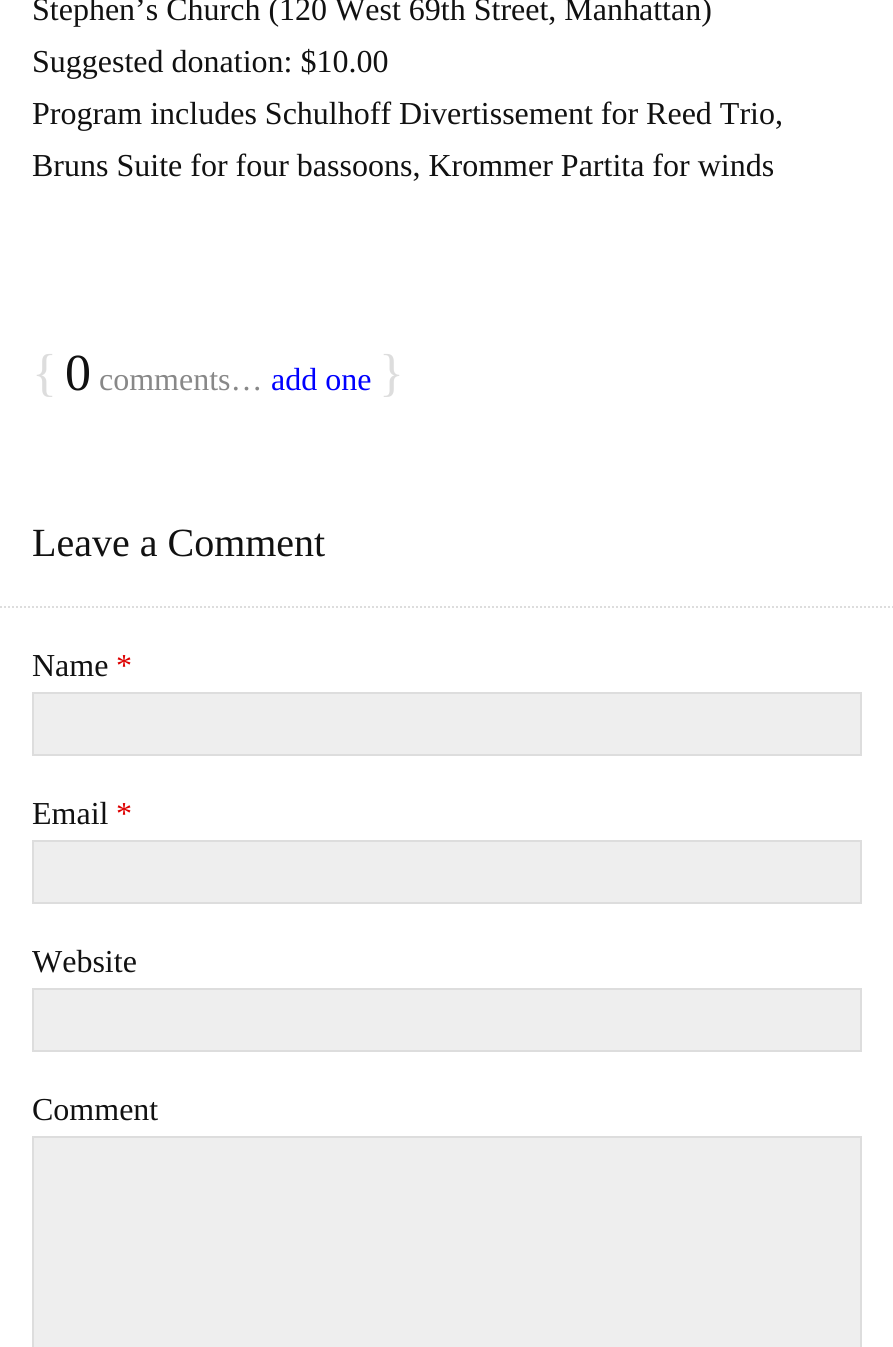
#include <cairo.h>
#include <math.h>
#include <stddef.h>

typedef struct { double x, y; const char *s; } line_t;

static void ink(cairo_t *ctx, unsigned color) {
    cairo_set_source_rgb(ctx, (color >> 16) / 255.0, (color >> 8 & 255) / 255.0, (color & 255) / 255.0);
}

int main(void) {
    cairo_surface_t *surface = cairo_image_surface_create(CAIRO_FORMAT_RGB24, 893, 1347);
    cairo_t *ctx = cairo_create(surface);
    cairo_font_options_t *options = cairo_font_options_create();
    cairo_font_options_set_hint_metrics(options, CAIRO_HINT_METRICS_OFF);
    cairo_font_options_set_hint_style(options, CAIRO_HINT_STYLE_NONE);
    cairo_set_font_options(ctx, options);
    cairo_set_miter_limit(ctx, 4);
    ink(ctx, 0xFFFFFF);
    cairo_paint(ctx);
    cairo_select_font_face(ctx, "Liberation Serif", CAIRO_FONT_SLANT_NORMAL, CAIRO_FONT_WEIGHT_NORMAL);
    cairo_set_font_size(ctx, 32);
    ink(ctx, 0x111111);
    {
        static const line_t items[] = {
            {32, 20, "Stephen’s Church (120 West 69th Street, Manhattan)"},
            {32, 72, "Suggested donation: $10.00"},
            {32, 124, "Program includes Schulhoff Divertissement for Reed Trio,"},
            {32, 176, "Bruns Suite for four bassoons, Krommer Partita for winds"},
        };
        for (size_t i = 0; i < sizeof items / sizeof *items; i++) {
            cairo_move_to(ctx, items[i].x, items[i].y);
            cairo_show_text(ctx, items[i].s);
        }
    }
    cairo_set_font_size(ctx, 52);
    ink(ctx, 0xDDDDDD);
    cairo_move_to(ctx, 32, 390);
    cairo_show_text(ctx, "{");
    ink(ctx, 0x111111);
    cairo_move_to(ctx, 65, 390);
    cairo_show_text(ctx, "0");
    cairo_set_font_size(ctx, 32);
    ink(ctx, 0x888888);
    cairo_move_to(ctx, 99, 390);
    cairo_show_text(ctx, "comments…");
    ink(ctx, 0x0000FF);
    cairo_move_to(ctx, 271, 390);
    cairo_show_text(ctx, "add one");
    cairo_set_font_size(ctx, 52);
    ink(ctx, 0xDDDDDD);
    cairo_move_to(ctx, 379, 390);
    cairo_show_text(ctx, "}");
    cairo_new_path(ctx);
    cairo_move_to(ctx, 0, 607);
    cairo_line_to(ctx, 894, 607);
    cairo_set_dash(ctx, (double[]){2, 2}, 2, 0);
    cairo_stroke(ctx);
    cairo_set_font_size(ctx, 40);
    ink(ctx, 0x111111);
    cairo_move_to(ctx, 32, 556);
    cairo_show_text(ctx, "Leave a Comment");
    cairo_set_font_size(ctx, 32);
    cairo_move_to(ctx, 32, 676);
    cairo_show_text(ctx, "Name");
    ink(ctx, 0xDD0000);
    cairo_move_to(ctx, 116, 676);
    cairo_show_text(ctx, "*");
    ink(ctx, 0xEEEEEE);
    cairo_rectangle(ctx, 33, 693, 828, 62);
    cairo_fill_preserve(ctx);
    ink(ctx, 0xDDDDDD);
    cairo_set_dash(ctx, NULL, 0, 0);
    cairo_stroke(ctx);
    ink(ctx, 0x111111);
    cairo_move_to(ctx, 32, 824);
    cairo_show_text(ctx, "Email");
    ink(ctx, 0xDD0000);
    cairo_move_to(ctx, 116, 824);
    cairo_show_text(ctx, "*");
    ink(ctx, 0xEEEEEE);
    cairo_rectangle(ctx, 33, 841, 828, 62);
    cairo_fill_preserve(ctx);
    ink(ctx, 0xDDDDDD);
    cairo_stroke(ctx);
    ink(ctx, 0x111111);
    cairo_move_to(ctx, 32, 972);
    cairo_show_text(ctx, "Website");
    ink(ctx, 0xEEEEEE);
    cairo_rectangle(ctx, 33, 989, 828, 62);
    cairo_fill_preserve(ctx);
    ink(ctx, 0xDDDDDD);
    cairo_stroke(ctx);
    ink(ctx, 0x111111);
    cairo_move_to(ctx, 32, 1120);
    cairo_show_text(ctx, "Comment");
    ink(ctx, 0xEEEEEE);
    cairo_rectangle(ctx, 33, 1137, 828, 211);
    cairo_fill_preserve(ctx);
    ink(ctx, 0xDDDDDD);
    cairo_stroke(ctx);
    cairo_surface_write_to_png(surface, "image.png");
    cairo_font_options_destroy(options);
    cairo_destroy(ctx);
    cairo_surface_destroy(surface);
    return 0;
}
